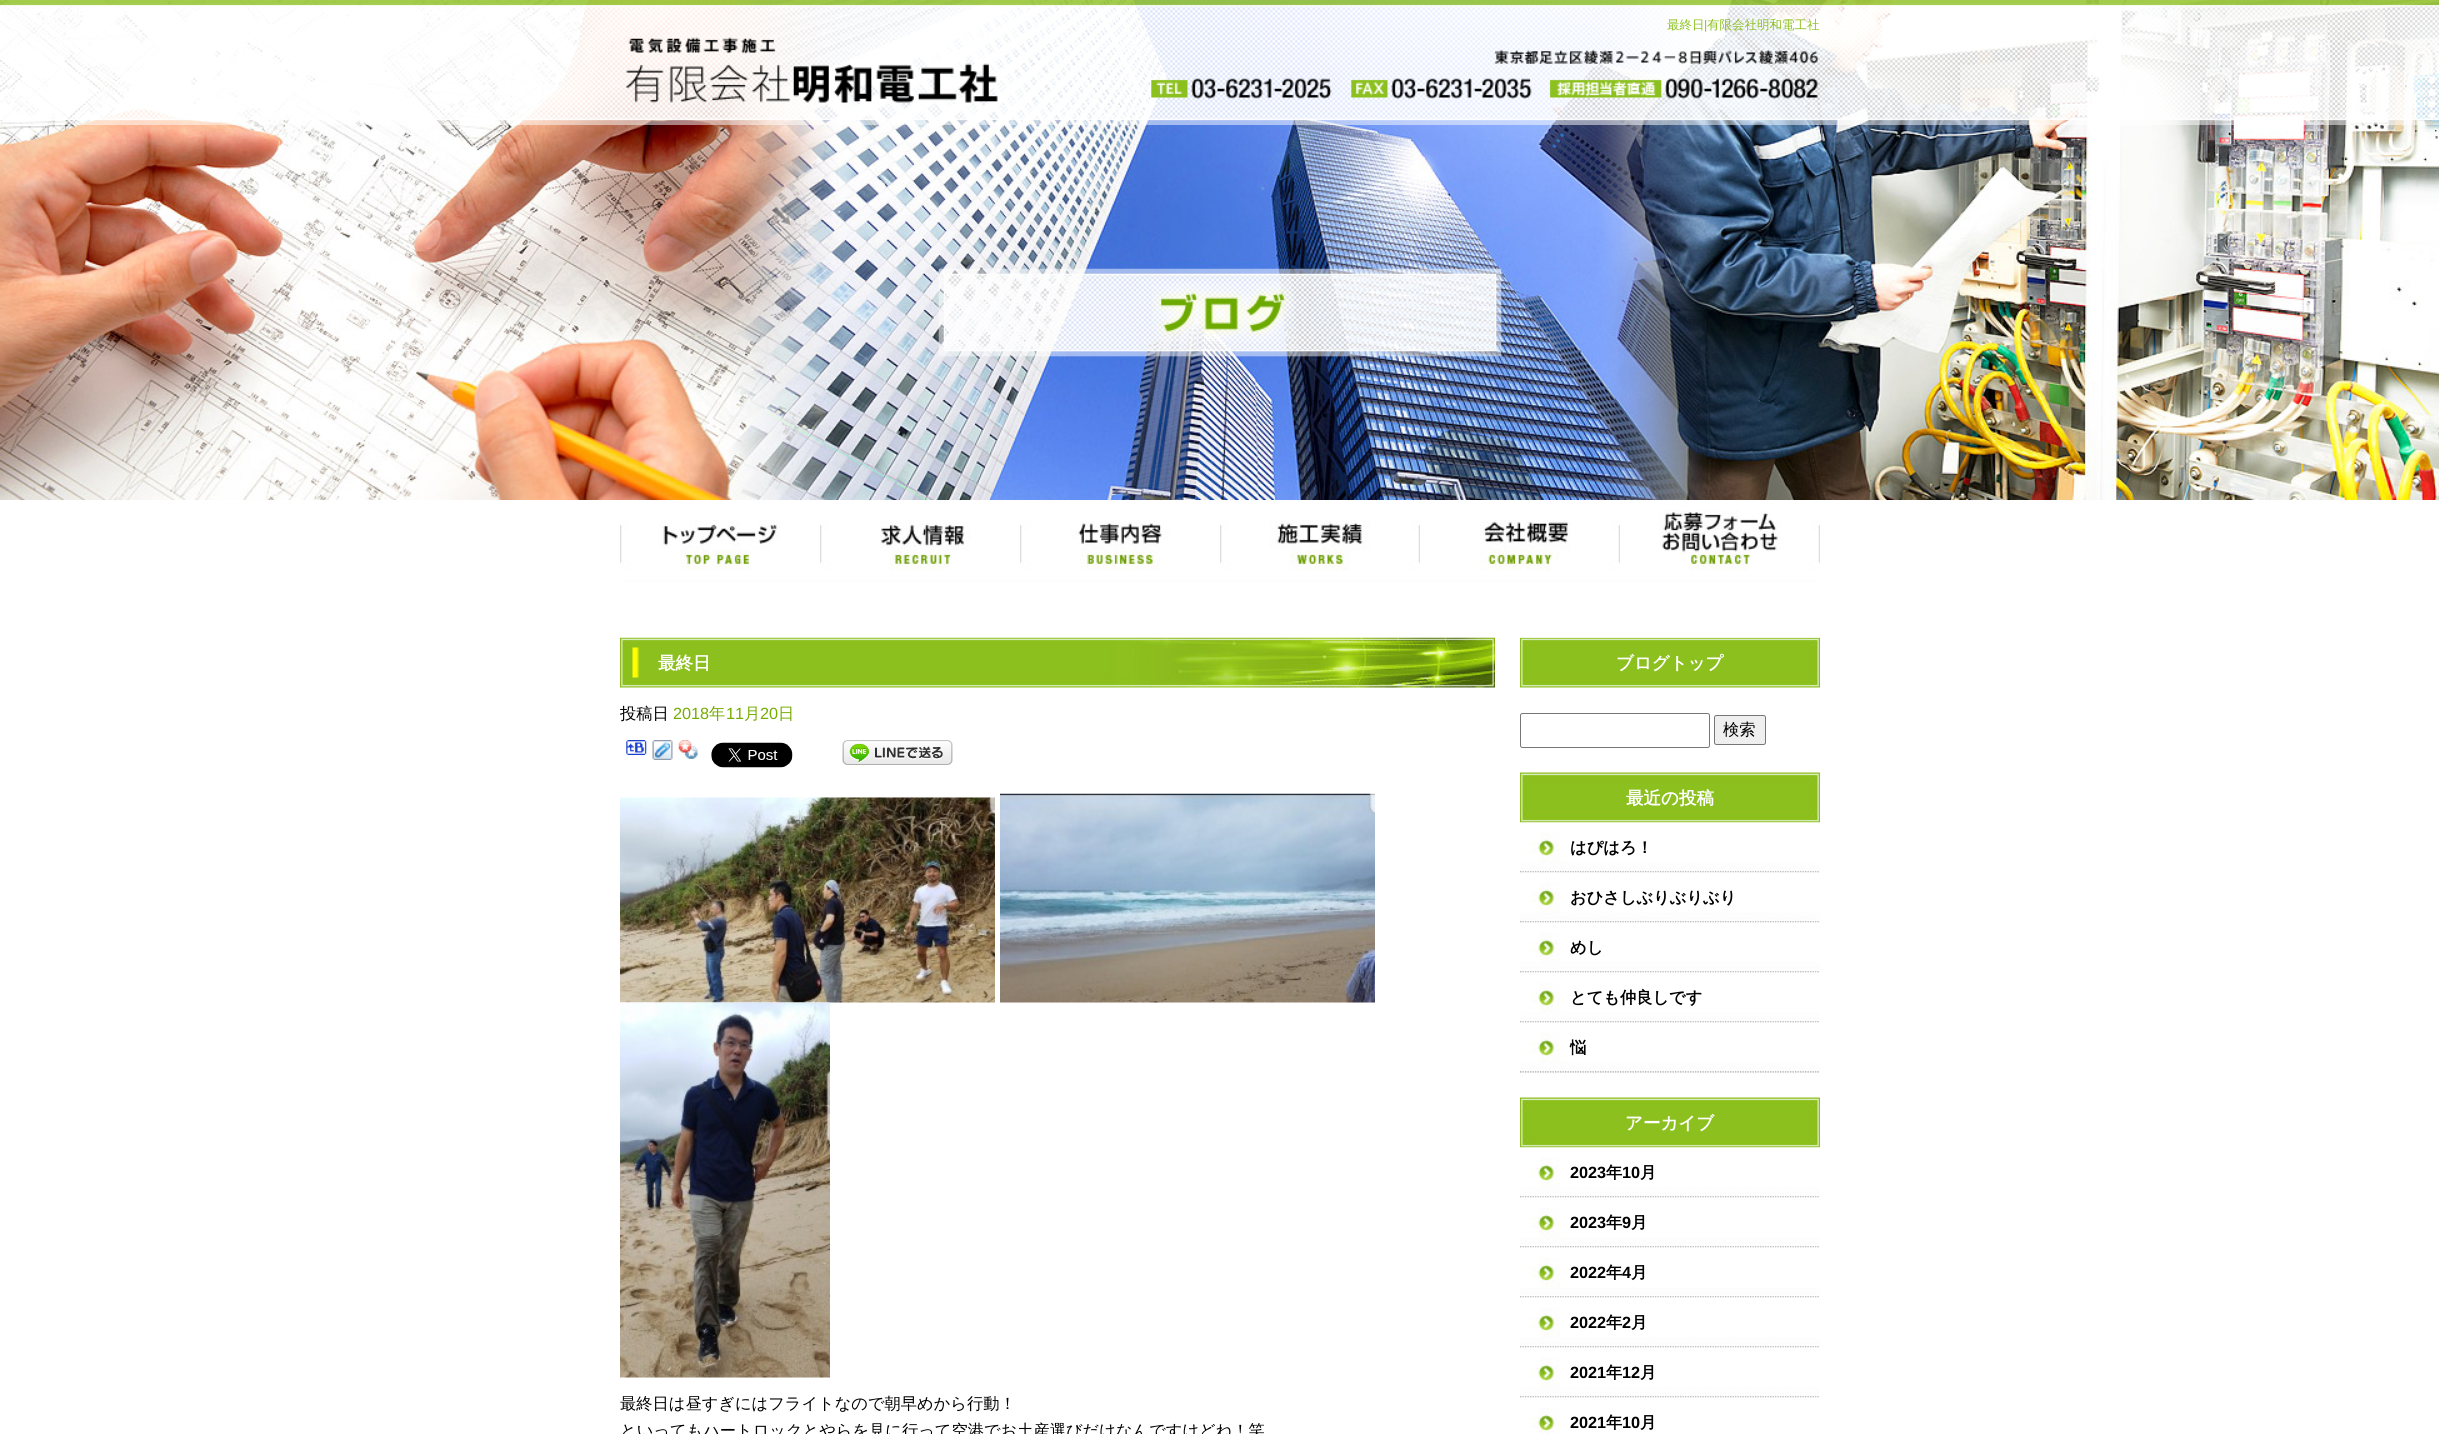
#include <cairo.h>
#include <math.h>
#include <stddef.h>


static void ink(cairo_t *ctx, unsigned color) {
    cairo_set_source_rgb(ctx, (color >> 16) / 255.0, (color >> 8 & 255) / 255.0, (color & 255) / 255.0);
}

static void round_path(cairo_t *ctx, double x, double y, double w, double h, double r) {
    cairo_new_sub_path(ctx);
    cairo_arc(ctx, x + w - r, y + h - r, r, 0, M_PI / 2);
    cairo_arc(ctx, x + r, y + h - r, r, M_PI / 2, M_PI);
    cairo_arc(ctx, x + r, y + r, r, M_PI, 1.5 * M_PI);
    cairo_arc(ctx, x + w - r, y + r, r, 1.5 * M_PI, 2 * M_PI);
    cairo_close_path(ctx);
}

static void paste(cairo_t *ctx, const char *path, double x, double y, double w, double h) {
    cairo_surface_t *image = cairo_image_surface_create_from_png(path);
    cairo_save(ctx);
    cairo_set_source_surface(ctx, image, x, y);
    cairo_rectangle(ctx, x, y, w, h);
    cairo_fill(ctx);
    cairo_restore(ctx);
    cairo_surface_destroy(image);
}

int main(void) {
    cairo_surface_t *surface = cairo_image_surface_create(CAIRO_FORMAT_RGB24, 2439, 1434);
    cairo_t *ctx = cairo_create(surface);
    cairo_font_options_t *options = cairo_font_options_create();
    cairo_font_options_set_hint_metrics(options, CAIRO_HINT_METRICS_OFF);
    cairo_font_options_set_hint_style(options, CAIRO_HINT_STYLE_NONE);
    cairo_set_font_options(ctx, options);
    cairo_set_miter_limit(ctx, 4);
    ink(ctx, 0xFFFFFF);
    cairo_paint(ctx);
    paste(ctx, "media/1.png", 0, 0, 2439, 500);
    paste(ctx, "media/2.png", 0, 0, 2439, 125);
    cairo_select_font_face(ctx, "WenQuanYi Zen Hei Medium", CAIRO_FONT_SLANT_NORMAL, CAIRO_FONT_WEIGHT_NORMAL);
    cairo_set_font_size(ctx, 12.5);
    ink(ctx, 0x8CC01E);
    cairo_move_to(ctx, 1667, 29);
    cairo_show_text(ctx, "最終日");
    cairo_select_font_face(ctx, "Liberation Sans", CAIRO_FONT_SLANT_NORMAL, CAIRO_FONT_WEIGHT_NORMAL);
    cairo_move_to(ctx, 1704, 29);
    cairo_show_text(ctx, "|");
    cairo_select_font_face(ctx, "WenQuanYi Zen Hei Medium", CAIRO_FONT_SLANT_NORMAL, CAIRO_FONT_WEIGHT_NORMAL);
    cairo_move_to(ctx, 1707, 29);
    cairo_show_text(ctx, "有限会社明和電工社");
    paste(ctx, "media/3.png", 626, 37, 1192, 66);
    paste(ctx, "media/4.png", 620, 520, 200, 62);
    paste(ctx, "media/5.png", 820, 520, 200, 62);
    paste(ctx, "media/6.png", 1020, 521, 200, 61);
    paste(ctx, "media/7.png", 1220, 520, 200, 62);
    paste(ctx, "media/8.png", 1420, 520, 200, 62);
    paste(ctx, "media/9.png", 1620, 510, 200, 72);
    paste(ctx, "media/10.png", 1152, 282, 144, 61);
    paste(ctx, "media/11.png", 620, 637, 875, 51);
    cairo_select_font_face(ctx, "WenQuanYi Zen Hei", CAIRO_FONT_SLANT_NORMAL, CAIRO_FONT_WEIGHT_BOLD);
    cairo_set_font_size(ctx, 17.5);
    ink(ctx, 0xFFFFFF);
    cairo_move_to(ctx, 658, 669);
    cairo_show_text(ctx, "最終日");
    cairo_select_font_face(ctx, "WenQuanYi Zen Hei Medium", CAIRO_FONT_SLANT_NORMAL, CAIRO_FONT_WEIGHT_NORMAL);
    cairo_set_font_size(ctx, 16.25);
    ink(ctx, 0x000000);
    cairo_move_to(ctx, 620, 719);
    cairo_show_text(ctx, "投稿日");
    cairo_select_font_face(ctx, "Liberation Sans", CAIRO_FONT_SLANT_NORMAL, CAIRO_FONT_WEIGHT_NORMAL);
    ink(ctx, 0x75AC00);
    cairo_move_to(ctx, 673, 719);
    cairo_show_text(ctx, "2018");
    cairo_select_font_face(ctx, "WenQuanYi Zen Hei Medium", CAIRO_FONT_SLANT_NORMAL, CAIRO_FONT_WEIGHT_NORMAL);
    cairo_move_to(ctx, 709, 719);
    cairo_show_text(ctx, "年");
    cairo_select_font_face(ctx, "Liberation Sans", CAIRO_FONT_SLANT_NORMAL, CAIRO_FONT_WEIGHT_NORMAL);
    cairo_move_to(ctx, 726, 719);
    cairo_show_text(ctx, "11");
    cairo_select_font_face(ctx, "WenQuanYi Zen Hei Medium", CAIRO_FONT_SLANT_NORMAL, CAIRO_FONT_WEIGHT_NORMAL);
    cairo_move_to(ctx, 744, 719);
    cairo_show_text(ctx, "月");
    cairo_select_font_face(ctx, "Liberation Sans", CAIRO_FONT_SLANT_NORMAL, CAIRO_FONT_WEIGHT_NORMAL);
    cairo_move_to(ctx, 760, 719);
    cairo_show_text(ctx, "20");
    cairo_select_font_face(ctx, "WenQuanYi Zen Hei Medium", CAIRO_FONT_SLANT_NORMAL, CAIRO_FONT_WEIGHT_NORMAL);
    cairo_move_to(ctx, 778, 719);
    cairo_show_text(ctx, "日");
    paste(ctx, "media/12.png", 626, 740, 21, 15);
    paste(ctx, "media/13.png", 652, 740, 21, 20);
    paste(ctx, "media/14.png", 678, 740, 20, 19);
    paste(ctx, "media/15.png", 711, 742, 82, 26);
    paste(ctx, "media/16.png", 842, 740, 111, 25);
    paste(ctx, "media/17.png", 620, 797, 375, 206);
    paste(ctx, "media/18.png", 1000, 793, 375, 210);
    paste(ctx, "media/19.png", 620, 1002, 210, 376);
    ink(ctx, 0x000000);
    cairo_move_to(ctx, 620, 1409);
    cairo_show_text(ctx, "最終日は昼すぎにはフライトなので朝早めから行動！");
    cairo_move_to(ctx, 620, 1436);
    cairo_show_text(ctx, "といってもハートロックとやらを見に行って空港でお土産選びだけなんですけどね！笑");
    paste(ctx, "media/20.png", 1520, 637, 300, 51);
    cairo_select_font_face(ctx, "WenQuanYi Zen Hei", CAIRO_FONT_SLANT_NORMAL, CAIRO_FONT_WEIGHT_BOLD);
    cairo_set_font_size(ctx, 17.5);
    ink(ctx, 0xFFFFFF);
    cairo_move_to(ctx, 1616, 669);
    cairo_show_text(ctx, "ブログトップ");
    round_path(ctx, 1520.5, 713.5, 189, 34, 2);
    ink(ctx, 0x767676);
    cairo_set_line_width(ctx, 1);
    cairo_stroke(ctx);
    ink(ctx, 0xEFEFEF);
    round_path(ctx, 1714.5, 715.5, 51, 29, 2);
    cairo_fill_preserve(ctx);
    ink(ctx, 0x767676);
    cairo_stroke(ctx);
    cairo_select_font_face(ctx, "WenQuanYi Zen Hei Medium", CAIRO_FONT_SLANT_NORMAL, CAIRO_FONT_WEIGHT_NORMAL);
    cairo_set_font_size(ctx, 16.25);
    ink(ctx, 0x000000);
    cairo_move_to(ctx, 1723, 735);
    cairo_show_text(ctx, "検索");
    paste(ctx, "media/21.png", 1520, 772, 300, 51);
    cairo_select_font_face(ctx, "WenQuanYi Zen Hei", CAIRO_FONT_SLANT_NORMAL, CAIRO_FONT_WEIGHT_BOLD);
    cairo_set_font_size(ctx, 17.5);
    ink(ctx, 0xFFFFFF);
    cairo_move_to(ctx, 1626, 804);
    cairo_show_text(ctx, "最近の投稿");
    paste(ctx, "media/22.png", 1520, 822, 300, 51);
    cairo_set_font_size(ctx, 16.25);
    ink(ctx, 0x000000);
    cairo_move_to(ctx, 1570, 853);
    cairo_show_text(ctx, "はぴはろ！");
    paste(ctx, "media/23.png", 1520, 872, 299, 51);
    cairo_move_to(ctx, 1570, 903);
    cairo_show_text(ctx, "おひさしぶりぶりぶり");
    paste(ctx, "media/23.png", 1520, 922, 299, 51);
    cairo_move_to(ctx, 1570, 953);
    cairo_show_text(ctx, "めし");
    paste(ctx, "media/23.png", 1520, 972, 299, 51);
    cairo_move_to(ctx, 1570, 1003);
    cairo_show_text(ctx, "とても仲良しです");
    paste(ctx, "media/24.png", 1520, 1022, 299, 51);
    cairo_move_to(ctx, 1570, 1053);
    cairo_show_text(ctx, "悩");
    paste(ctx, "media/25.png", 1520, 1097, 300, 51);
    cairo_set_font_size(ctx, 17.5);
    ink(ctx, 0xFFFFFF);
    cairo_move_to(ctx, 1625, 1129);
    cairo_show_text(ctx, "アーカイブ");
    paste(ctx, "media/26.png", 1520, 1147, 300, 51);
    cairo_select_font_face(ctx, "Liberation Sans", CAIRO_FONT_SLANT_NORMAL, CAIRO_FONT_WEIGHT_BOLD);
    cairo_set_font_size(ctx, 16.25);
    ink(ctx, 0x000000);
    cairo_move_to(ctx, 1570, 1178);
    cairo_show_text(ctx, "2023");
    cairo_select_font_face(ctx, "WenQuanYi Zen Hei", CAIRO_FONT_SLANT_NORMAL, CAIRO_FONT_WEIGHT_BOLD);
    cairo_move_to(ctx, 1606, 1178);
    cairo_show_text(ctx, "年");
    cairo_select_font_face(ctx, "Liberation Sans", CAIRO_FONT_SLANT_NORMAL, CAIRO_FONT_WEIGHT_BOLD);
    cairo_move_to(ctx, 1622, 1178);
    cairo_show_text(ctx, "10");
    cairo_select_font_face(ctx, "WenQuanYi Zen Hei", CAIRO_FONT_SLANT_NORMAL, CAIRO_FONT_WEIGHT_BOLD);
    cairo_move_to(ctx, 1640, 1178);
    cairo_show_text(ctx, "月");
    paste(ctx, "media/23.png", 1520, 1197, 299, 51);
    cairo_select_font_face(ctx, "Liberation Sans", CAIRO_FONT_SLANT_NORMAL, CAIRO_FONT_WEIGHT_BOLD);
    cairo_move_to(ctx, 1570, 1228);
    cairo_show_text(ctx, "2023");
    cairo_select_font_face(ctx, "WenQuanYi Zen Hei", CAIRO_FONT_SLANT_NORMAL, CAIRO_FONT_WEIGHT_BOLD);
    cairo_move_to(ctx, 1606, 1228);
    cairo_show_text(ctx, "年");
    cairo_select_font_face(ctx, "Liberation Sans", CAIRO_FONT_SLANT_NORMAL, CAIRO_FONT_WEIGHT_BOLD);
    cairo_move_to(ctx, 1622, 1228);
    cairo_show_text(ctx, "9");
    cairo_select_font_face(ctx, "WenQuanYi Zen Hei", CAIRO_FONT_SLANT_NORMAL, CAIRO_FONT_WEIGHT_BOLD);
    cairo_move_to(ctx, 1631, 1228);
    cairo_show_text(ctx, "月");
    paste(ctx, "media/23.png", 1520, 1247, 299, 51);
    cairo_select_font_face(ctx, "Liberation Sans", CAIRO_FONT_SLANT_NORMAL, CAIRO_FONT_WEIGHT_BOLD);
    cairo_move_to(ctx, 1570, 1278);
    cairo_show_text(ctx, "2022");
    cairo_select_font_face(ctx, "WenQuanYi Zen Hei", CAIRO_FONT_SLANT_NORMAL, CAIRO_FONT_WEIGHT_BOLD);
    cairo_move_to(ctx, 1606, 1278);
    cairo_show_text(ctx, "年");
    cairo_select_font_face(ctx, "Liberation Sans", CAIRO_FONT_SLANT_NORMAL, CAIRO_FONT_WEIGHT_BOLD);
    cairo_move_to(ctx, 1622, 1278);
    cairo_show_text(ctx, "4");
    cairo_select_font_face(ctx, "WenQuanYi Zen Hei", CAIRO_FONT_SLANT_NORMAL, CAIRO_FONT_WEIGHT_BOLD);
    cairo_move_to(ctx, 1631, 1278);
    cairo_show_text(ctx, "月");
    paste(ctx, "media/23.png", 1520, 1297, 299, 51);
    cairo_select_font_face(ctx, "Liberation Sans", CAIRO_FONT_SLANT_NORMAL, CAIRO_FONT_WEIGHT_BOLD);
    cairo_move_to(ctx, 1570, 1328);
    cairo_show_text(ctx, "2022");
    cairo_select_font_face(ctx, "WenQuanYi Zen Hei", CAIRO_FONT_SLANT_NORMAL, CAIRO_FONT_WEIGHT_BOLD);
    cairo_move_to(ctx, 1606, 1328);
    cairo_show_text(ctx, "年");
    cairo_select_font_face(ctx, "Liberation Sans", CAIRO_FONT_SLANT_NORMAL, CAIRO_FONT_WEIGHT_BOLD);
    cairo_move_to(ctx, 1622, 1328);
    cairo_show_text(ctx, "2");
    cairo_select_font_face(ctx, "WenQuanYi Zen Hei", CAIRO_FONT_SLANT_NORMAL, CAIRO_FONT_WEIGHT_BOLD);
    cairo_move_to(ctx, 1631, 1328);
    cairo_show_text(ctx, "月");
    paste(ctx, "media/23.png", 1520, 1347, 299, 51);
    cairo_select_font_face(ctx, "Liberation Sans", CAIRO_FONT_SLANT_NORMAL, CAIRO_FONT_WEIGHT_BOLD);
    cairo_move_to(ctx, 1570, 1378);
    cairo_show_text(ctx, "2021");
    cairo_select_font_face(ctx, "WenQuanYi Zen Hei", CAIRO_FONT_SLANT_NORMAL, CAIRO_FONT_WEIGHT_BOLD);
    cairo_move_to(ctx, 1606, 1378);
    cairo_show_text(ctx, "年");
    cairo_select_font_face(ctx, "Liberation Sans", CAIRO_FONT_SLANT_NORMAL, CAIRO_FONT_WEIGHT_BOLD);
    cairo_move_to(ctx, 1622, 1378);
    cairo_show_text(ctx, "12");
    cairo_select_font_face(ctx, "WenQuanYi Zen Hei", CAIRO_FONT_SLANT_NORMAL, CAIRO_FONT_WEIGHT_BOLD);
    cairo_move_to(ctx, 1640, 1378);
    cairo_show_text(ctx, "月");
    paste(ctx, "media/27.png", 1520, 1397, 299, 37);
    cairo_select_font_face(ctx, "Liberation Sans", CAIRO_FONT_SLANT_NORMAL, CAIRO_FONT_WEIGHT_BOLD);
    cairo_move_to(ctx, 1570, 1428);
    cairo_show_text(ctx, "2021");
    cairo_select_font_face(ctx, "WenQuanYi Zen Hei", CAIRO_FONT_SLANT_NORMAL, CAIRO_FONT_WEIGHT_BOLD);
    cairo_move_to(ctx, 1606, 1428);
    cairo_show_text(ctx, "年");
    cairo_select_font_face(ctx, "Liberation Sans", CAIRO_FONT_SLANT_NORMAL, CAIRO_FONT_WEIGHT_BOLD);
    cairo_move_to(ctx, 1622, 1428);
    cairo_show_text(ctx, "10");
    cairo_select_font_face(ctx, "WenQuanYi Zen Hei", CAIRO_FONT_SLANT_NORMAL, CAIRO_FONT_WEIGHT_BOLD);
    cairo_move_to(ctx, 1640, 1428);
    cairo_show_text(ctx, "月");
    cairo_surface_write_to_png(surface, "image.png");
    cairo_font_options_destroy(options);
    cairo_destroy(ctx);
    cairo_surface_destroy(surface);
    return 0;
}
